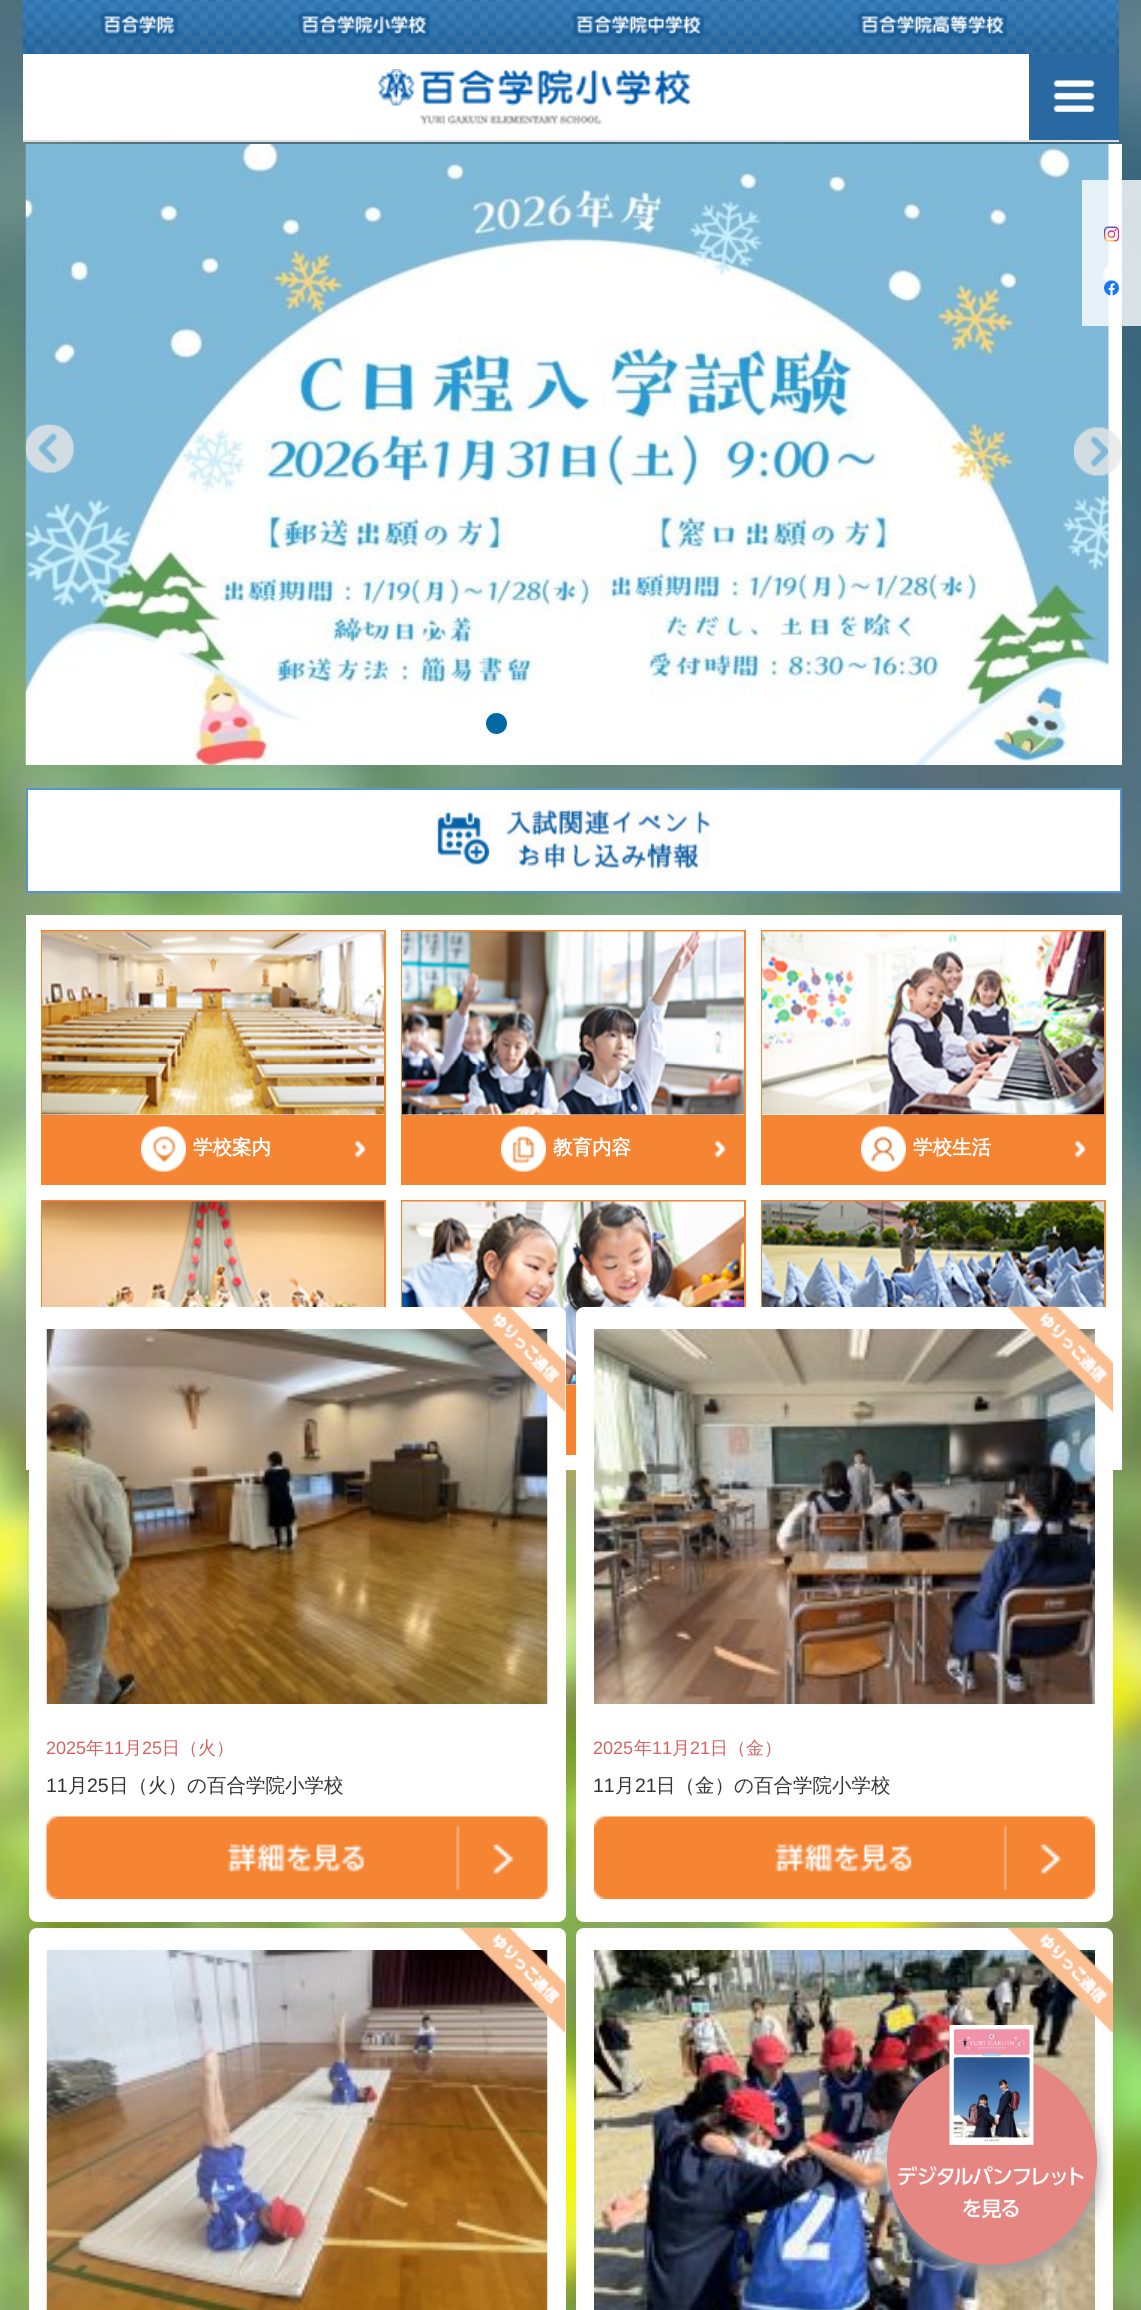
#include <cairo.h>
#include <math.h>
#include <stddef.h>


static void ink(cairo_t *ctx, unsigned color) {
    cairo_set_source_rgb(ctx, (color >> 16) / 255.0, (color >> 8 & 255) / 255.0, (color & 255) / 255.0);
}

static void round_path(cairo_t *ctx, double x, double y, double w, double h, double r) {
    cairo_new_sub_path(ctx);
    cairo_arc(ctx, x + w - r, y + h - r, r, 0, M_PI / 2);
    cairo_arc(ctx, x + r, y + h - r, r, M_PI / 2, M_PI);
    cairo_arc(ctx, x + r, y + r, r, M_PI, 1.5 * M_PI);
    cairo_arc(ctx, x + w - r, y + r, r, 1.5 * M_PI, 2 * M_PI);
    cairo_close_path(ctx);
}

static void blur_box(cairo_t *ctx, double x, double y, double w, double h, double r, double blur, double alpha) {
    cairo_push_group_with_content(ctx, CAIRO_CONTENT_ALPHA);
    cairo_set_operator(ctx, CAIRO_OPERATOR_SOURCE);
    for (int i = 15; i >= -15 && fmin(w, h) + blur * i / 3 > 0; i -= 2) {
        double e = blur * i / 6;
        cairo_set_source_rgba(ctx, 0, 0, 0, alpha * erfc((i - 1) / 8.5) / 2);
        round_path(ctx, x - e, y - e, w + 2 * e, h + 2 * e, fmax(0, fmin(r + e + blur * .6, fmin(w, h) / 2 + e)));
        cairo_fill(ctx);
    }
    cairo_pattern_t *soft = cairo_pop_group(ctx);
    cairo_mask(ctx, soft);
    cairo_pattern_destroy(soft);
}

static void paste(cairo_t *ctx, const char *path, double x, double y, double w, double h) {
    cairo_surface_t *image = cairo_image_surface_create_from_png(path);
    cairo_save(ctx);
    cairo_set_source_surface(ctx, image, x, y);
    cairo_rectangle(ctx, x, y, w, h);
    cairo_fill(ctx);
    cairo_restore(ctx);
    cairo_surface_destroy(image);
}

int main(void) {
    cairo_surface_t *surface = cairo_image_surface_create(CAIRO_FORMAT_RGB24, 1141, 2310);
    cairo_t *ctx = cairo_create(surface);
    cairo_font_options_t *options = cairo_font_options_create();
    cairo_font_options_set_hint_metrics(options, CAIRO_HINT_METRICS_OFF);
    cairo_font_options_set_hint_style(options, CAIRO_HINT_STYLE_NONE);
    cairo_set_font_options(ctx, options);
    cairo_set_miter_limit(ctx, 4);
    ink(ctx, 0xFFFFFF);
    cairo_paint(ctx);
    paste(ctx, "media/3.png", 0, 0, 1141, 2310);
    ink(ctx, 0xFFFFFF);
    cairo_rectangle(ctx, 1108, 144, 14, 621);
    cairo_fill(ctx);
    paste(ctx, "media/11.png", 25, 144, 1084, 621);
    cairo_set_source_rgba(ctx, 1, 1, 1, 0.8);
    cairo_rectangle(ctx, 1082, 180, 59, 146);
    cairo_fill(ctx);
    paste(ctx, "media/1.png", 1104, 226, 15, 16);
    paste(ctx, "media/2.png", 1104, 280, 15, 16);
    paste(ctx, "media/4.png", 22, 0, 1097, 54);
    paste(ctx, "media/5.png", 100, 11, 79, 27);
    paste(ctx, "media/6.png", 298, 11, 133, 27);
    paste(ctx, "media/7.png", 572, 11, 133, 27);
    paste(ctx, "media/8.png", 857, 11, 151, 27);
    ink(ctx, 0xFFFFFF);
    cairo_rectangle(ctx, 23, 54, 1006, 86);
    cairo_fill(ctx);
    ink(ctx, 0xDEDEDE);
    cairo_rectangle(ctx, 23, 140, 1096, 2);
    cairo_fill(ctx);
    paste(ctx, "media/9.png", 378, 69, 312, 56);
    ink(ctx, 0x2968A0);
    cairo_rectangle(ctx, 1029, 54, 90, 86);
    cairo_fill(ctx);
    paste(ctx, "media/10.png", 1053, 80, 42, 32);
    paste(ctx, "media/12.png", 25, 424, 49, 49);
    paste(ctx, "media/13.png", 1074, 427, 48, 49);
    ink(ctx, 0x0068A3);
    cairo_arc(ctx, 496.5, 723.5, 10.5, 0, 2 * M_PI);
    cairo_fill(ctx);
    ink(ctx, 0xFFFFFF);
    cairo_rectangle(ctx, 27, 789, 1094, 103);
    cairo_fill_preserve(ctx);
    ink(ctx, 0x5595D5);
    cairo_stroke(ctx);
    paste(ctx, "media/14.png", 436, 809, 274, 61);
    ink(ctx, 0xFFFFFF);
    cairo_rectangle(ctx, 26, 915, 1096, 555);
    cairo_fill(ctx);
    cairo_rectangle(ctx, 42, 931, 343, 253);
    ink(ctx, 0xF58533);
    cairo_stroke(ctx);
    ink(ctx, 0xFFFFFF);
    cairo_rectangle(ctx, 42, 1114, 1, 1);
    cairo_fill(ctx);
    paste(ctx, "media/15.png", 42, 931, 342, 184);
    ink(ctx, 0xF58533);
    cairo_rectangle(ctx, 43, 1115, 341, 68);
    cairo_fill(ctx);
    paste(ctx, "media/16.png", 141, 1126, 45, 46);
    cairo_select_font_face(ctx, "WenQuanYi Zen Hei", CAIRO_FONT_SLANT_NORMAL, CAIRO_FONT_WEIGHT_BOLD);
    cairo_set_font_size(ctx, 19.5);
    ink(ctx, 0xFFFFFF);
    cairo_move_to(ctx, 193, 1154);
    cairo_show_text(ctx, "学校案内");
    paste(ctx, "media/17.png", 354, 1139, 12, 20);
    cairo_rectangle(ctx, 402, 931, 343, 253);
    ink(ctx, 0xF58533);
    cairo_stroke(ctx);
    ink(ctx, 0xFFFFFF);
    cairo_rectangle(ctx, 402, 1114, 1, 1);
    cairo_fill(ctx);
    paste(ctx, "media/18.png", 402, 931, 342, 184);
    ink(ctx, 0xF58533);
    cairo_rectangle(ctx, 403, 1115, 341, 68);
    cairo_fill(ctx);
    paste(ctx, "media/19.png", 501, 1126, 45, 46);
    ink(ctx, 0xFFFFFF);
    cairo_move_to(ctx, 553, 1154);
    cairo_show_text(ctx, "教育内容");
    paste(ctx, "media/20.png", 714, 1139, 12, 20);
    cairo_rectangle(ctx, 762, 931, 343, 253);
    ink(ctx, 0xF58533);
    cairo_stroke(ctx);
    ink(ctx, 0xFFFFFF);
    cairo_rectangle(ctx, 762, 1114, 1, 1);
    cairo_fill(ctx);
    paste(ctx, "media/21.png", 762, 931, 342, 184);
    ink(ctx, 0xF58533);
    cairo_rectangle(ctx, 763, 1115, 341, 68);
    cairo_fill(ctx);
    paste(ctx, "media/22.png", 861, 1126, 45, 46);
    ink(ctx, 0xFFFFFF);
    cairo_move_to(ctx, 913, 1154);
    cairo_show_text(ctx, "学校生活");
    paste(ctx, "media/17.png", 1074, 1139, 12, 20);
    cairo_rectangle(ctx, 42, 1201, 343, 253);
    ink(ctx, 0xF58533);
    cairo_stroke(ctx);
    paste(ctx, "media/23.png", 42, 1201, 342, 106);
    cairo_rectangle(ctx, 402, 1201, 343, 253);
    cairo_stroke(ctx);
    paste(ctx, "media/24.png", 402, 1201, 342, 184);
    cairo_rectangle(ctx, 566, 1385, 10, 68);
    cairo_fill(ctx);
    cairo_rectangle(ctx, 762, 1201, 343, 253);
    cairo_stroke(ctx);
    paste(ctx, "media/25.png", 762, 1201, 342, 106);
    ink(ctx, 0xFFFFFF);
    round_path(ctx, 29, 1307, 537, 615, 8);
    cairo_fill(ctx);
    paste(ctx, "media/27.png", 46, 1329, 502, 375);
    paste(ctx, "media/26.png", 459, 1306, 107, 107);
    cairo_select_font_face(ctx, "Liberation Sans", CAIRO_FONT_SLANT_NORMAL, CAIRO_FONT_WEIGHT_NORMAL);
    cairo_set_font_size(ctx, 18);
    ink(ctx, 0xD46262);
    cairo_move_to(ctx, 46, 1754);
    cairo_show_text(ctx, "2025");
    cairo_select_font_face(ctx, "WenQuanYi Zen Hei Medium", CAIRO_FONT_SLANT_NORMAL, CAIRO_FONT_WEIGHT_NORMAL);
    cairo_move_to(ctx, 86, 1754);
    cairo_show_text(ctx, "年");
    cairo_select_font_face(ctx, "Liberation Sans", CAIRO_FONT_SLANT_NORMAL, CAIRO_FONT_WEIGHT_NORMAL);
    cairo_move_to(ctx, 104, 1754);
    cairo_show_text(ctx, "11");
    cairo_select_font_face(ctx, "WenQuanYi Zen Hei Medium", CAIRO_FONT_SLANT_NORMAL, CAIRO_FONT_WEIGHT_NORMAL);
    cairo_move_to(ctx, 124, 1754);
    cairo_show_text(ctx, "月");
    cairo_select_font_face(ctx, "Liberation Sans", CAIRO_FONT_SLANT_NORMAL, CAIRO_FONT_WEIGHT_NORMAL);
    cairo_move_to(ctx, 142, 1754);
    cairo_show_text(ctx, "25");
    cairo_select_font_face(ctx, "WenQuanYi Zen Hei Medium", CAIRO_FONT_SLANT_NORMAL, CAIRO_FONT_WEIGHT_NORMAL);
    cairo_move_to(ctx, 162, 1754);
    cairo_show_text(ctx, "日（火）");
    cairo_select_font_face(ctx, "Liberation Sans", CAIRO_FONT_SLANT_NORMAL, CAIRO_FONT_WEIGHT_NORMAL);
    cairo_set_font_size(ctx, 19.5);
    ink(ctx, 0x333333);
    cairo_move_to(ctx, 46, 1792);
    cairo_show_text(ctx, "11");
    cairo_select_font_face(ctx, "WenQuanYi Zen Hei Medium", CAIRO_FONT_SLANT_NORMAL, CAIRO_FONT_WEIGHT_NORMAL);
    cairo_move_to(ctx, 68, 1792);
    cairo_show_text(ctx, "月");
    cairo_select_font_face(ctx, "Liberation Sans", CAIRO_FONT_SLANT_NORMAL, CAIRO_FONT_WEIGHT_NORMAL);
    cairo_move_to(ctx, 87, 1792);
    cairo_show_text(ctx, "25");
    cairo_select_font_face(ctx, "WenQuanYi Zen Hei Medium", CAIRO_FONT_SLANT_NORMAL, CAIRO_FONT_WEIGHT_NORMAL);
    cairo_move_to(ctx, 109, 1792);
    cairo_show_text(ctx, "日（火）の百合学院小学校");
    paste(ctx, "media/28.png", 46, 1816, 502, 83);
    ink(ctx, 0xFFFFFF);
    round_path(ctx, 576, 1307, 537, 615, 8);
    cairo_fill(ctx);
    paste(ctx, "media/30.png", 594, 1329, 501, 375);
    paste(ctx, "media/29.png", 1006, 1306, 107, 107);
    cairo_select_font_face(ctx, "Liberation Sans", CAIRO_FONT_SLANT_NORMAL, CAIRO_FONT_WEIGHT_NORMAL);
    cairo_set_font_size(ctx, 18);
    ink(ctx, 0xD46262);
    cairo_move_to(ctx, 593, 1754);
    cairo_show_text(ctx, "2025");
    cairo_select_font_face(ctx, "WenQuanYi Zen Hei Medium", CAIRO_FONT_SLANT_NORMAL, CAIRO_FONT_WEIGHT_NORMAL);
    cairo_move_to(ctx, 634, 1754);
    cairo_show_text(ctx, "年");
    cairo_select_font_face(ctx, "Liberation Sans", CAIRO_FONT_SLANT_NORMAL, CAIRO_FONT_WEIGHT_NORMAL);
    cairo_move_to(ctx, 652, 1754);
    cairo_show_text(ctx, "11");
    cairo_select_font_face(ctx, "WenQuanYi Zen Hei Medium", CAIRO_FONT_SLANT_NORMAL, CAIRO_FONT_WEIGHT_NORMAL);
    cairo_move_to(ctx, 672, 1754);
    cairo_show_text(ctx, "月");
    cairo_select_font_face(ctx, "Liberation Sans", CAIRO_FONT_SLANT_NORMAL, CAIRO_FONT_WEIGHT_NORMAL);
    cairo_move_to(ctx, 690, 1754);
    cairo_show_text(ctx, "21");
    cairo_select_font_face(ctx, "WenQuanYi Zen Hei Medium", CAIRO_FONT_SLANT_NORMAL, CAIRO_FONT_WEIGHT_NORMAL);
    cairo_move_to(ctx, 710, 1754);
    cairo_show_text(ctx, "日（金）");
    cairo_select_font_face(ctx, "Liberation Sans", CAIRO_FONT_SLANT_NORMAL, CAIRO_FONT_WEIGHT_NORMAL);
    cairo_set_font_size(ctx, 19.5);
    ink(ctx, 0x333333);
    cairo_move_to(ctx, 593, 1792);
    cairo_show_text(ctx, "11");
    cairo_select_font_face(ctx, "WenQuanYi Zen Hei Medium", CAIRO_FONT_SLANT_NORMAL, CAIRO_FONT_WEIGHT_NORMAL);
    cairo_move_to(ctx, 615, 1792);
    cairo_show_text(ctx, "月");
    cairo_select_font_face(ctx, "Liberation Sans", CAIRO_FONT_SLANT_NORMAL, CAIRO_FONT_WEIGHT_NORMAL);
    cairo_move_to(ctx, 635, 1792);
    cairo_show_text(ctx, "21");
    cairo_select_font_face(ctx, "WenQuanYi Zen Hei Medium", CAIRO_FONT_SLANT_NORMAL, CAIRO_FONT_WEIGHT_NORMAL);
    cairo_move_to(ctx, 656, 1792);
    cairo_show_text(ctx, "日（金）の百合学院小学校");
    paste(ctx, "media/31.png", 594, 1816, 501, 83);
    ink(ctx, 0xFFFFFF);
    round_path(ctx, 29, 1928, 537, 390, 8);
    cairo_fill(ctx);
    paste(ctx, "media/33.png", 46, 1950, 502, 360);
    paste(ctx, "media/32.png", 459, 1927, 107, 107);
    round_path(ctx, 576, 1928, 537, 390, 8);
    cairo_fill(ctx);
    paste(ctx, "media/35.png", 594, 1950, 501, 360);
    paste(ctx, "media/34.png", 1006, 1927, 107, 107);
    ink(ctx, 0x999999);
    blur_box(ctx, 887, 2064, 210, 210, 105, 7.5, 1);
    ink(ctx, 0xE58683);
    cairo_arc(ctx, 992, 2160, 105, 0, 2 * M_PI);
    cairo_fill(ctx);
    paste(ctx, "media/36.png", 949, 2025, 85, 120);
    paste(ctx, "media/37.png", 898, 2166, 186, 53);
    cairo_surface_write_to_png(surface, "image.png");
    cairo_font_options_destroy(options);
    cairo_destroy(ctx);
    cairo_surface_destroy(surface);
    return 0;
}
